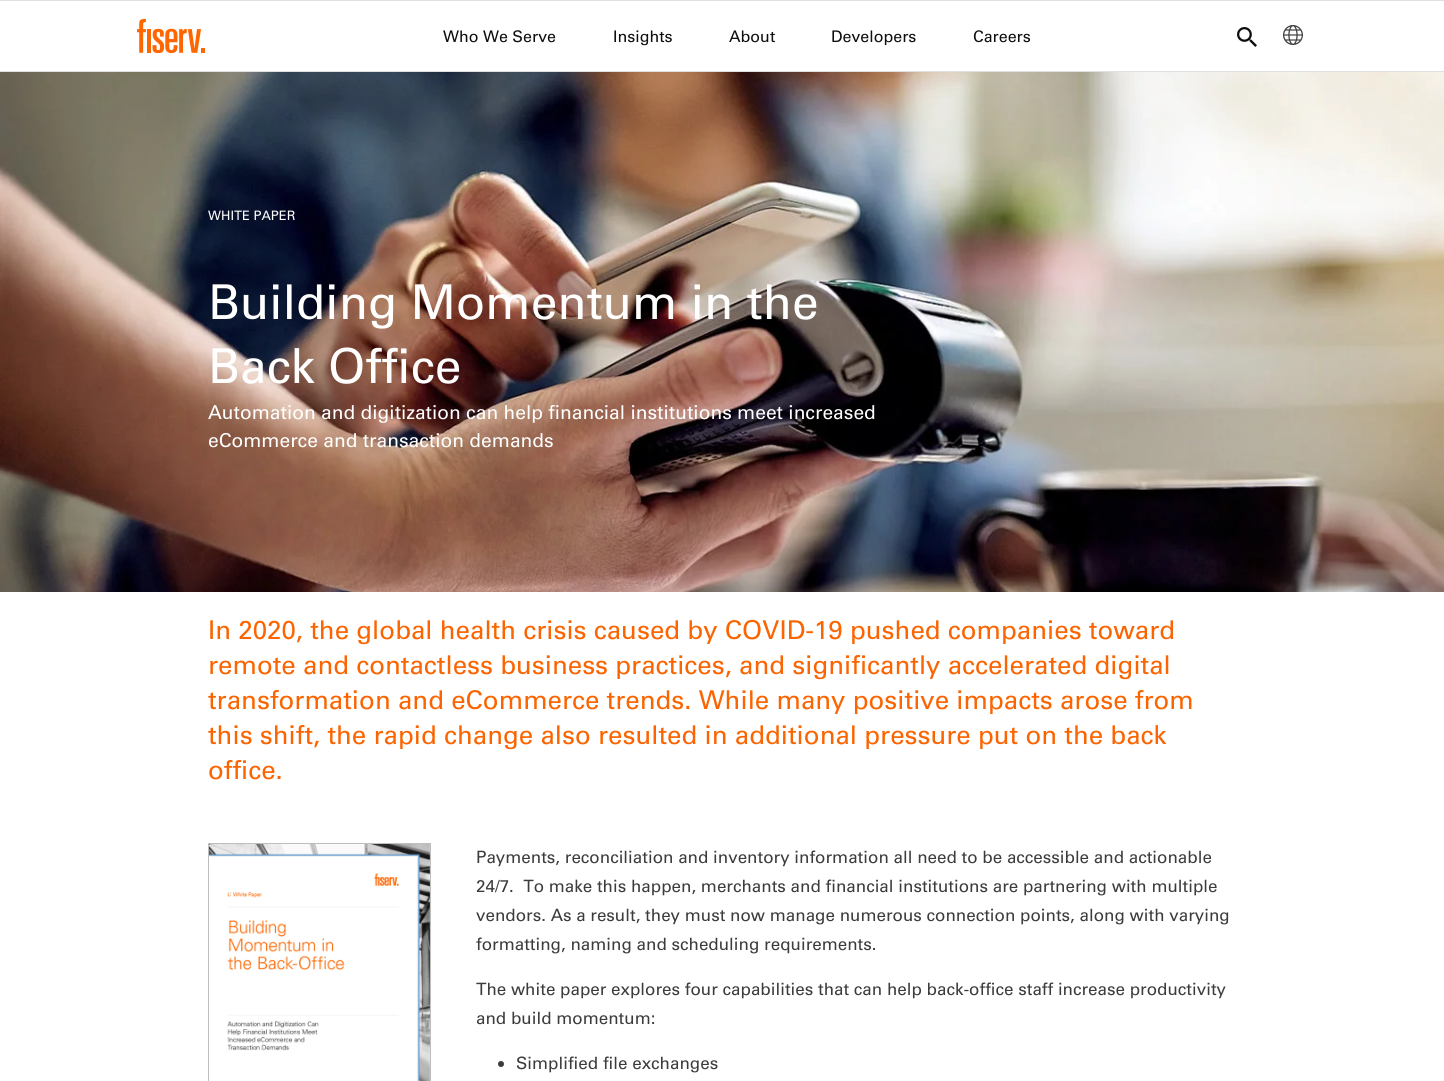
#include <cairo.h>
#include <math.h>
#include <stddef.h>

typedef struct { double x, y; const char *s; } line_t;

static void ink(cairo_t *ctx, unsigned color) {
    cairo_set_source_rgb(ctx, (color >> 16) / 255.0, (color >> 8 & 255) / 255.0, (color & 255) / 255.0);
}

static void paste(cairo_t *ctx, const char *path, double x, double y, double w, double h) {
    cairo_surface_t *image = cairo_image_surface_create_from_png(path);
    cairo_save(ctx);
    cairo_set_source_surface(ctx, image, x, y);
    cairo_rectangle(ctx, x, y, w, h);
    cairo_fill(ctx);
    cairo_restore(ctx);
    cairo_surface_destroy(image);
}

int main(void) {
    cairo_surface_t *surface = cairo_image_surface_create(CAIRO_FORMAT_RGB24, 1444, 1081);
    cairo_t *ctx = cairo_create(surface);
    cairo_font_options_t *options = cairo_font_options_create();
    cairo_font_options_set_hint_metrics(options, CAIRO_HINT_METRICS_OFF);
    cairo_font_options_set_hint_style(options, CAIRO_HINT_STYLE_NONE);
    cairo_set_font_options(ctx, options);
    cairo_set_miter_limit(ctx, 4);
    ink(ctx, 0xFFFFFF);
    cairo_paint(ctx);
    ink(ctx, 0xE0E0E0);
    cairo_rectangle(ctx, 0, 0, 1444, 1);
    cairo_fill(ctx);
    cairo_rectangle(ctx, 0, 71, 1444, 1);
    cairo_fill(ctx);
    paste(ctx, "media/1.png", 137, 18, 68, 36);
    cairo_select_font_face(ctx, "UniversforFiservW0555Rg", CAIRO_FONT_SLANT_NORMAL, CAIRO_FONT_WEIGHT_NORMAL);
    cairo_set_font_size(ctx, 16);
    ink(ctx, 0x0E0E0E);
    {
        static const line_t items[] = {
            {443, 42, "Who We Serve"},
            {613, 42, "Insights"},
            {729, 42, "About"},
            {831, 42, "Developers"},
            {973, 42, "Careers"},
        };
        for (size_t i = 0; i < sizeof items / sizeof *items; i++) {
            cairo_move_to(ctx, items[i].x, items[i].y);
            cairo_show_text(ctx, items[i].s);
        }
    }
    paste(ctx, "media/2.png", 1237, 27, 20, 20);
    paste(ctx, "media/3.png", 1283, 25, 20, 20);
    paste(ctx, "media/4.png", 0, 72, 1444, 520);
    cairo_set_font_size(ctx, 13);
    ink(ctx, 0xFFFFFF);
    cairo_move_to(ctx, 208, 220);
    cairo_show_text(ctx, "WHITE PAPER");
    cairo_set_font_size(ctx, 48);
    cairo_move_to(ctx, 208, 319);
    cairo_show_text(ctx, "Building Momentum in the");
    cairo_move_to(ctx, 208, 383);
    cairo_show_text(ctx, "Back Office");
    cairo_set_font_size(ctx, 19.2);
    cairo_move_to(ctx, 208, 419);
    cairo_show_text(ctx, "Automation and digitization can help financial institutions meet increased");
    cairo_move_to(ctx, 208, 447);
    cairo_show_text(ctx, "eCommerce and transaction demands");
    cairo_set_font_size(ctx, 25.9);
    ink(ctx, 0xFB6400);
    {
        static const line_t items[] = {
            {208, 639, "In 2020, the global health crisis caused by COVID-19 pushed companies toward"},
            {208, 674, "remote and contactless business practices, and significantly accelerated digital"},
            {208, 709, "transformation and eCommerce trends. While many positive impacts arose from"},
            {208, 744, "this shift, the rapid change also resulted in additional pressure put on the back"},
            {208, 779, "office."},
        };
        for (size_t i = 0; i < sizeof items / sizeof *items; i++) {
            cairo_move_to(ctx, items[i].x, items[i].y);
            cairo_show_text(ctx, items[i].s);
        }
    }
    cairo_rectangle(ctx, 208.5, 843.5, 222, 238);
    ink(ctx, 0xBEBEBE);
    cairo_set_line_width(ctx, 1);
    cairo_stroke(ctx);
    paste(ctx, "media/5.png", 209, 844, 221, 237);
    cairo_set_font_size(ctx, 17);
    ink(ctx, 0x3C3C3C);
    {
        static const line_t items[] = {
            {476, 863, "Payments, reconciliation and inventory information all need to be accessible and actionable"},
            {476, 892, "24/7.  To make this happen, merchants and financial institutions are partnering with multiple"},
            {476, 921, "vendors. As a result, they must now manage numerous connection points, along with varying"},
            {476, 950, "formatting, naming and scheduling requirements."},
            {476, 995, "The white paper explores four capabilities that can help back-office staff increase productivity"},
            {476, 1024, "and build momentum:"},
        };
        for (size_t i = 0; i < sizeof items / sizeof *items; i++) {
            cairo_move_to(ctx, items[i].x, items[i].y);
            cairo_show_text(ctx, items[i].s);
        }
    }
    cairo_new_path(ctx);
    cairo_arc(ctx, 501, 1064, 3, 0, 2 * M_PI);
    cairo_fill(ctx);
    cairo_move_to(ctx, 516, 1069);
    cairo_show_text(ctx, "Simplified file exchanges");
    cairo_surface_write_to_png(surface, "image.png");
    cairo_font_options_destroy(options);
    cairo_destroy(ctx);
    cairo_surface_destroy(surface);
    return 0;
}
